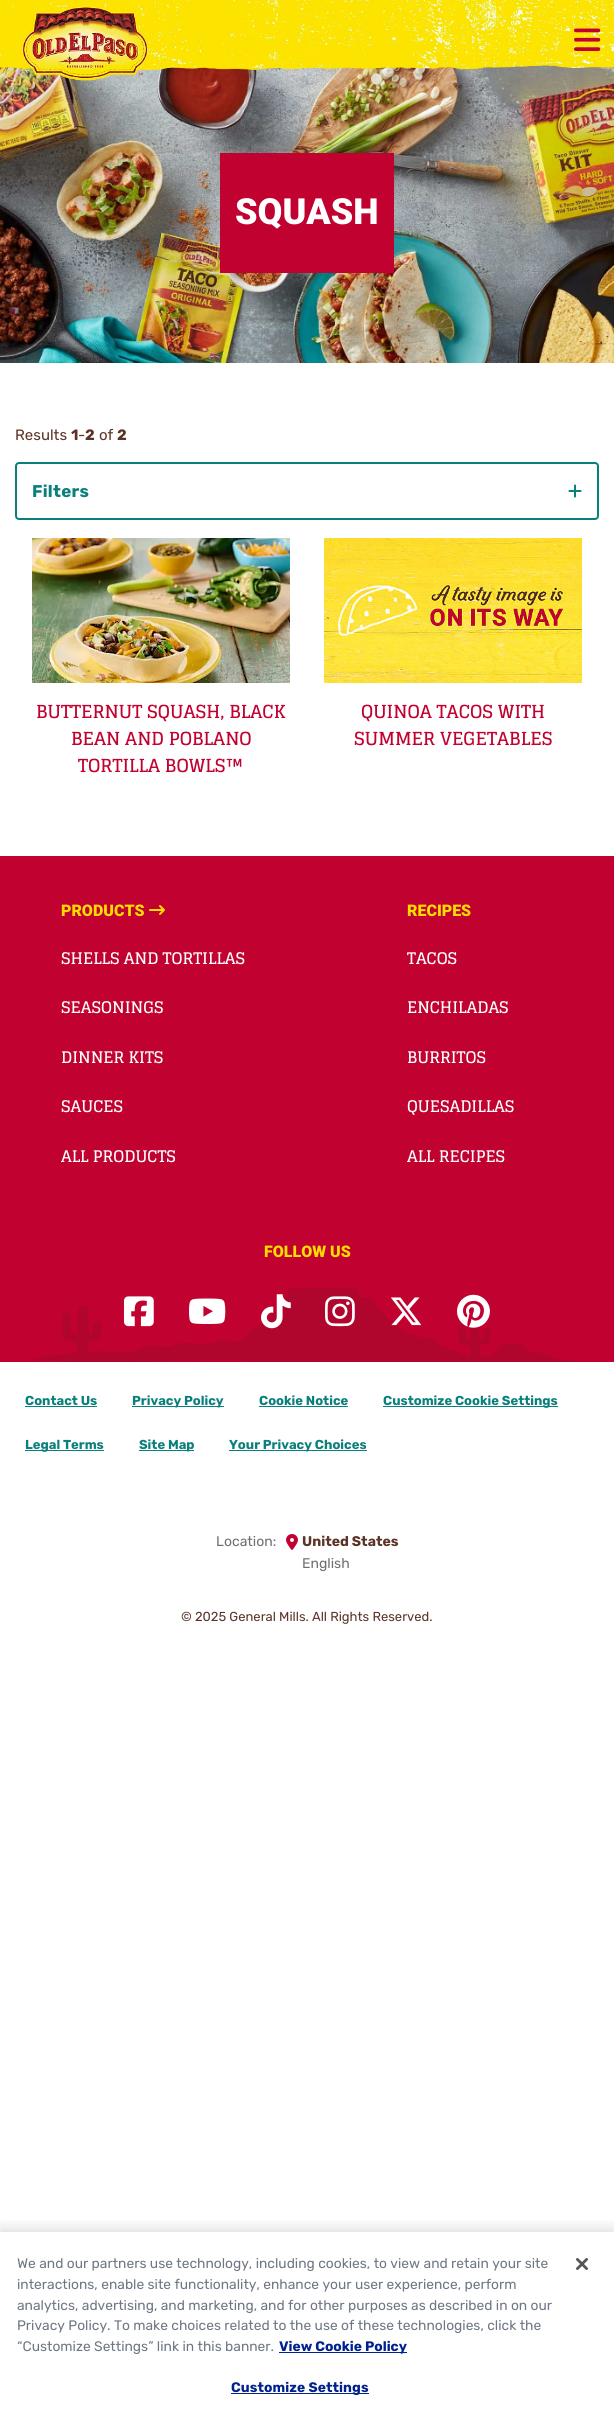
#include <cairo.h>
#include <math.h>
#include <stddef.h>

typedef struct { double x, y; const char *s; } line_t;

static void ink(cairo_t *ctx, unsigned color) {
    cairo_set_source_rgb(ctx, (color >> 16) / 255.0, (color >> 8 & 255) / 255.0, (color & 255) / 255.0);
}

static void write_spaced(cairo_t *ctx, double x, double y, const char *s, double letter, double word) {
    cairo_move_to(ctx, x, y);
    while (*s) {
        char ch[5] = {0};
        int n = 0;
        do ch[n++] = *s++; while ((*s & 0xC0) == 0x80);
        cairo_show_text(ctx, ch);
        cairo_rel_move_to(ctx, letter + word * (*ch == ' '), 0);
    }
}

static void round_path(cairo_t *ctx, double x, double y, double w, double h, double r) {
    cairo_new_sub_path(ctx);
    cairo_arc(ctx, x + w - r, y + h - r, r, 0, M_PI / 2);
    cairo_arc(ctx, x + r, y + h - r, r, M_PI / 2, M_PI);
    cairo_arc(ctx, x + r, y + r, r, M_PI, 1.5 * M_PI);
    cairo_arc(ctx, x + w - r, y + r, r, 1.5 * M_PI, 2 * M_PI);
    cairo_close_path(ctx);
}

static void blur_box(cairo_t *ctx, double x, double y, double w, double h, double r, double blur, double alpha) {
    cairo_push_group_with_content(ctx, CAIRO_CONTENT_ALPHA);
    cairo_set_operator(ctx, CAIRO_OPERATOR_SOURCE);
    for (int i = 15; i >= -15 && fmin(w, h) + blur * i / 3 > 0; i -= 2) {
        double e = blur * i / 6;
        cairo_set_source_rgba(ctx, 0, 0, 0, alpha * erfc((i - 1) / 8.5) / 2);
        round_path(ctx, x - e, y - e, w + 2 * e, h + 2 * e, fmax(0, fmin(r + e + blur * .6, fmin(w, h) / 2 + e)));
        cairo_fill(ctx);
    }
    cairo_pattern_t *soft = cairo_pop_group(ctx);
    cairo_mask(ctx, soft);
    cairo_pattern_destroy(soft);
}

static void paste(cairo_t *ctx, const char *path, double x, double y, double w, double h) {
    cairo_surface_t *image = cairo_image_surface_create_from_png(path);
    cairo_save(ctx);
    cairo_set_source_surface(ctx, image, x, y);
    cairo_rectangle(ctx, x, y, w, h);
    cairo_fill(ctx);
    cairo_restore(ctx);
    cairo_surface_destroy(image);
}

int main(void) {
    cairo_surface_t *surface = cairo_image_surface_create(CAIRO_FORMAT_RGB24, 614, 2418);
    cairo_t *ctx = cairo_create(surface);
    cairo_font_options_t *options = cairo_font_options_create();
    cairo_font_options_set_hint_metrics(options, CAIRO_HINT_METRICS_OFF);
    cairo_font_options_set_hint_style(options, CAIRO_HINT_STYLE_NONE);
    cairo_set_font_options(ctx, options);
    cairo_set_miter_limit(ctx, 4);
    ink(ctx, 0xFFFFFF);
    cairo_paint(ctx);
    paste(ctx, "media/4.png", 0, 65, 614, 298);
    paste(ctx, "media/1.png", 0, 0, 614, 70);
    paste(ctx, "media/2.png", 21, 5, 129, 76);
    paste(ctx, "media/3.png", 574, 28, 27, 23);
    ink(ctx, 0xC10230);
    cairo_rectangle(ctx, 220, 153, 174, 120);
    cairo_fill(ctx);
    cairo_select_font_face(ctx, "Roboto Black", CAIRO_FONT_SLANT_NORMAL, CAIRO_FONT_WEIGHT_NORMAL);
    cairo_set_font_size(ctx, 36);
    ink(ctx, 0xFFFFFF);
    cairo_move_to(ctx, 235, 224);
    cairo_show_text(ctx, "SQUASH");
    cairo_select_font_face(ctx, "Rubik Light", CAIRO_FONT_SLANT_NORMAL, CAIRO_FONT_WEIGHT_NORMAL);
    cairo_set_font_size(ctx, 15);
    ink(ctx, 0x5C3327);
    cairo_move_to(ctx, 15, 440);
    cairo_show_text(ctx, "Results");
    cairo_select_font_face(ctx, "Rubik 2 Light", CAIRO_FONT_SLANT_NORMAL, CAIRO_FONT_WEIGHT_NORMAL);
    cairo_move_to(ctx, 71, 440);
    cairo_show_text(ctx, "1");
    cairo_select_font_face(ctx, "Rubik Light", CAIRO_FONT_SLANT_NORMAL, CAIRO_FONT_WEIGHT_NORMAL);
    cairo_move_to(ctx, 78, 440);
    cairo_show_text(ctx, "-");
    cairo_select_font_face(ctx, "Rubik 2 Light", CAIRO_FONT_SLANT_NORMAL, CAIRO_FONT_WEIGHT_NORMAL);
    cairo_move_to(ctx, 85, 440);
    cairo_show_text(ctx, "2");
    cairo_select_font_face(ctx, "Rubik Light", CAIRO_FONT_SLANT_NORMAL, CAIRO_FONT_WEIGHT_NORMAL);
    cairo_move_to(ctx, 99, 440);
    cairo_show_text(ctx, "of");
    cairo_select_font_face(ctx, "Rubik 2 Light", CAIRO_FONT_SLANT_NORMAL, CAIRO_FONT_WEIGHT_NORMAL);
    cairo_move_to(ctx, 117, 440);
    cairo_show_text(ctx, "2");
    round_path(ctx, 16, 463, 582, 56, 3);
    ink(ctx, 0x0A807C);
    cairo_stroke(ctx);
    cairo_set_font_size(ctx, 17);
    write_spaced(ctx, 32, 497, "Filters", 0.25, 0);
    paste(ctx, "media/5.png", 568, 484, 14, 14);
    paste(ctx, "media/6.png", 32, 538, 258, 145);
    cairo_select_font_face(ctx, "Glegoo", CAIRO_FONT_SLANT_NORMAL, CAIRO_FONT_WEIGHT_BOLD);
    cairo_set_font_size(ctx, 18);
    ink(ctx, 0xC10230);
    {
        static const line_t items[] = {
            {36, 718, "BUTTERNUT SQUASH, BLACK"},
            {71, 745, "BEAN AND POBLANO"},
            {78, 772, "TORTILLA BOWLS™"},
        };
        for (size_t i = 0; i < sizeof items / sizeof *items; i++) {
            cairo_move_to(ctx, items[i].x, items[i].y);
            cairo_show_text(ctx, items[i].s);
        }
    }
    paste(ctx, "media/7.png", 324, 538, 258, 145);
    cairo_move_to(ctx, 361, 718);
    cairo_show_text(ctx, "QUINOA TACOS WITH");
    cairo_move_to(ctx, 354, 745);
    cairo_show_text(ctx, "SUMMER VEGETABLES");
    cairo_rectangle(ctx, 0, 856, 614, 506);
    cairo_fill(ctx);
    paste(ctx, "media/8.png", 29, 1288, 548, 74);
    cairo_select_font_face(ctx, "Roboto Black", CAIRO_FONT_SLANT_NORMAL, CAIRO_FONT_WEIGHT_NORMAL);
    cairo_set_font_size(ctx, 16);
    ink(ctx, 0xFFDD00);
    cairo_move_to(ctx, 61, 916);
    cairo_show_text(ctx, "PRODUCTS");
    paste(ctx, "media/9.png", 149, 905, 16, 10);
    cairo_select_font_face(ctx, "Glegoo", CAIRO_FONT_SLANT_NORMAL, CAIRO_FONT_WEIGHT_BOLD);
    ink(ctx, 0xFFFFFF);
    {
        static const line_t items[] = {
            {61, 964, "SHELLS AND TORTILLAS"},
            {61, 1013, "SEASONINGS"},
            {61, 1063, "DINNER KITS"},
            {61, 1112, "SAUCES"},
            {61, 1162, "ALL PRODUCTS"},
        };
        for (size_t i = 0; i < sizeof items / sizeof *items; i++) {
            cairo_move_to(ctx, items[i].x, items[i].y);
            cairo_show_text(ctx, items[i].s);
        }
    }
    cairo_select_font_face(ctx, "Roboto Black", CAIRO_FONT_SLANT_NORMAL, CAIRO_FONT_WEIGHT_NORMAL);
    ink(ctx, 0xFFDD00);
    cairo_move_to(ctx, 407, 916);
    cairo_show_text(ctx, "RECIPES");
    cairo_select_font_face(ctx, "Glegoo", CAIRO_FONT_SLANT_NORMAL, CAIRO_FONT_WEIGHT_BOLD);
    ink(ctx, 0xFFFFFF);
    {
        static const line_t items[] = {
            {407, 964, "TACOS"},
            {407, 1013, "ENCHILADAS"},
            {407, 1063, "BURRITOS"},
            {407, 1112, "QUESADILLAS"},
            {407, 1162, "ALL RECIPES"},
        };
        for (size_t i = 0; i < sizeof items / sizeof *items; i++) {
            cairo_move_to(ctx, items[i].x, items[i].y);
            cairo_show_text(ctx, items[i].s);
        }
    }
    cairo_select_font_face(ctx, "Roboto Black", CAIRO_FONT_SLANT_NORMAL, CAIRO_FONT_WEIGHT_NORMAL);
    ink(ctx, 0xFFDD00);
    cairo_move_to(ctx, 264, 1257);
    cairo_show_text(ctx, "FOLLOW US");
    paste(ctx, "media/10.png", 124, 1296, 30, 31);
    paste(ctx, "media/11.png", 189, 1298, 37, 26);
    paste(ctx, "media/12.png", 261, 1294, 30, 35);
    paste(ctx, "media/13.png", 325, 1296, 30, 31);
    paste(ctx, "media/14.png", 390, 1297, 32, 29);
    paste(ctx, "media/15.png", 457, 1294, 33, 34);
    cairo_select_font_face(ctx, "Rubik 2 Light", CAIRO_FONT_SLANT_NORMAL, CAIRO_FONT_WEIGHT_NORMAL);
    cairo_set_font_size(ctx, 13);
    ink(ctx, 0x0A807C);
    cairo_move_to(ctx, 25, 1405);
    cairo_show_text(ctx, "Contact Us");
    cairo_rectangle(ctx, 25, 1406, 72, 1);
    cairo_fill(ctx);
    cairo_rectangle(ctx, 132, 1406, 92, 1);
    cairo_fill(ctx);
    cairo_move_to(ctx, 132, 1405);
    cairo_show_text(ctx, "Privacy Policy");
    cairo_move_to(ctx, 259, 1405);
    cairo_show_text(ctx, "Cookie Notice");
    cairo_rectangle(ctx, 259, 1406, 89, 1);
    cairo_fill(ctx);
    cairo_rectangle(ctx, 383, 1406, 175, 1);
    cairo_fill(ctx);
    cairo_move_to(ctx, 383, 1405);
    cairo_show_text(ctx, "Customize Cookie Settings");
    cairo_rectangle(ctx, 25, 1450, 79, 1);
    cairo_fill(ctx);
    cairo_move_to(ctx, 25, 1449);
    cairo_show_text(ctx, "Legal Terms");
    cairo_rectangle(ctx, 139, 1450, 55, 1);
    cairo_fill(ctx);
    cairo_move_to(ctx, 139, 1449);
    cairo_show_text(ctx, "Site Map");
    cairo_rectangle(ctx, 229, 1450, 138, 1);
    cairo_fill(ctx);
    cairo_move_to(ctx, 229, 1449);
    cairo_show_text(ctx, "Your Privacy Choices");
    cairo_select_font_face(ctx, "Rubik Light", CAIRO_FONT_SLANT_NORMAL, CAIRO_FONT_WEIGHT_NORMAL);
    cairo_set_font_size(ctx, 14);
    ink(ctx, 0x707070);
    cairo_move_to(ctx, 216, 1546);
    cairo_show_text(ctx, "Location:");
    paste(ctx, "media/16.png", 286, 1534, 12, 16);
    cairo_select_font_face(ctx, "Rubik 2 Light", CAIRO_FONT_SLANT_NORMAL, CAIRO_FONT_WEIGHT_NORMAL);
    ink(ctx, 0x5C3327);
    cairo_move_to(ctx, 302, 1546);
    cairo_show_text(ctx, "United States");
    cairo_select_font_face(ctx, "Rubik Light", CAIRO_FONT_SLANT_NORMAL, CAIRO_FONT_WEIGHT_NORMAL);
    ink(ctx, 0x707070);
    cairo_move_to(ctx, 302, 1568);
    cairo_show_text(ctx, "English");
    cairo_set_font_size(ctx, 13);
    ink(ctx, 0x5C3327);
    cairo_move_to(ctx, 181, 1621);
    cairo_show_text(ctx, "© 2025 General Mills. All Rights Reserved.");
    cairo_save(ctx);
    cairo_rectangle(ctx, 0, 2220, 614, 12);
    cairo_clip(ctx);
    ink(ctx, 0x000000);
    blur_box(ctx, 0, 2232, 614, 186, 0, 9, 0.2);
    cairo_restore(ctx);
    cairo_set_font_size(ctx, 13.8);
    ink(ctx, 0x6F7785);
    {
        static const line_t items[] = {
            {17, 2268, "We and our partners use technology, including cookies, to view and retain your site"},
            {17, 2289, "interactions, enable site functionality, enhance your user experience, perform"},
            {17, 2310, "analytics, advertising, and marketing, and for other purposes as described in on our"},
            {17, 2330, "Privacy Policy. To make choices related to the use of these technologies, click the"},
            {17, 2351, "“Customize Settings” link in this banner."},
        };
        for (size_t i = 0; i < sizeof items / sizeof *items; i++) {
            cairo_move_to(ctx, items[i].x, items[i].y);
            cairo_show_text(ctx, items[i].s);
        }
    }
    ink(ctx, 0x00218E);
    cairo_rectangle(ctx, 279, 2352, 128, 1);
    cairo_fill(ctx);
    cairo_select_font_face(ctx, "Rubik 2 Light", CAIRO_FONT_SLANT_NORMAL, CAIRO_FONT_WEIGHT_NORMAL);
    cairo_move_to(ctx, 279, 2351);
    cairo_show_text(ctx, "View Cookie Policy");
    cairo_rectangle(ctx, 231, 2393, 138, 1);
    cairo_fill(ctx);
    write_spaced(ctx, 231, 2392, "Customize Settings", 0.1, 0);
    paste(ctx, "media/17.png", 576, 2258, 12, 12);
    cairo_surface_write_to_png(surface, "image.png");
    cairo_font_options_destroy(options);
    cairo_destroy(ctx);
    cairo_surface_destroy(surface);
    return 0;
}
